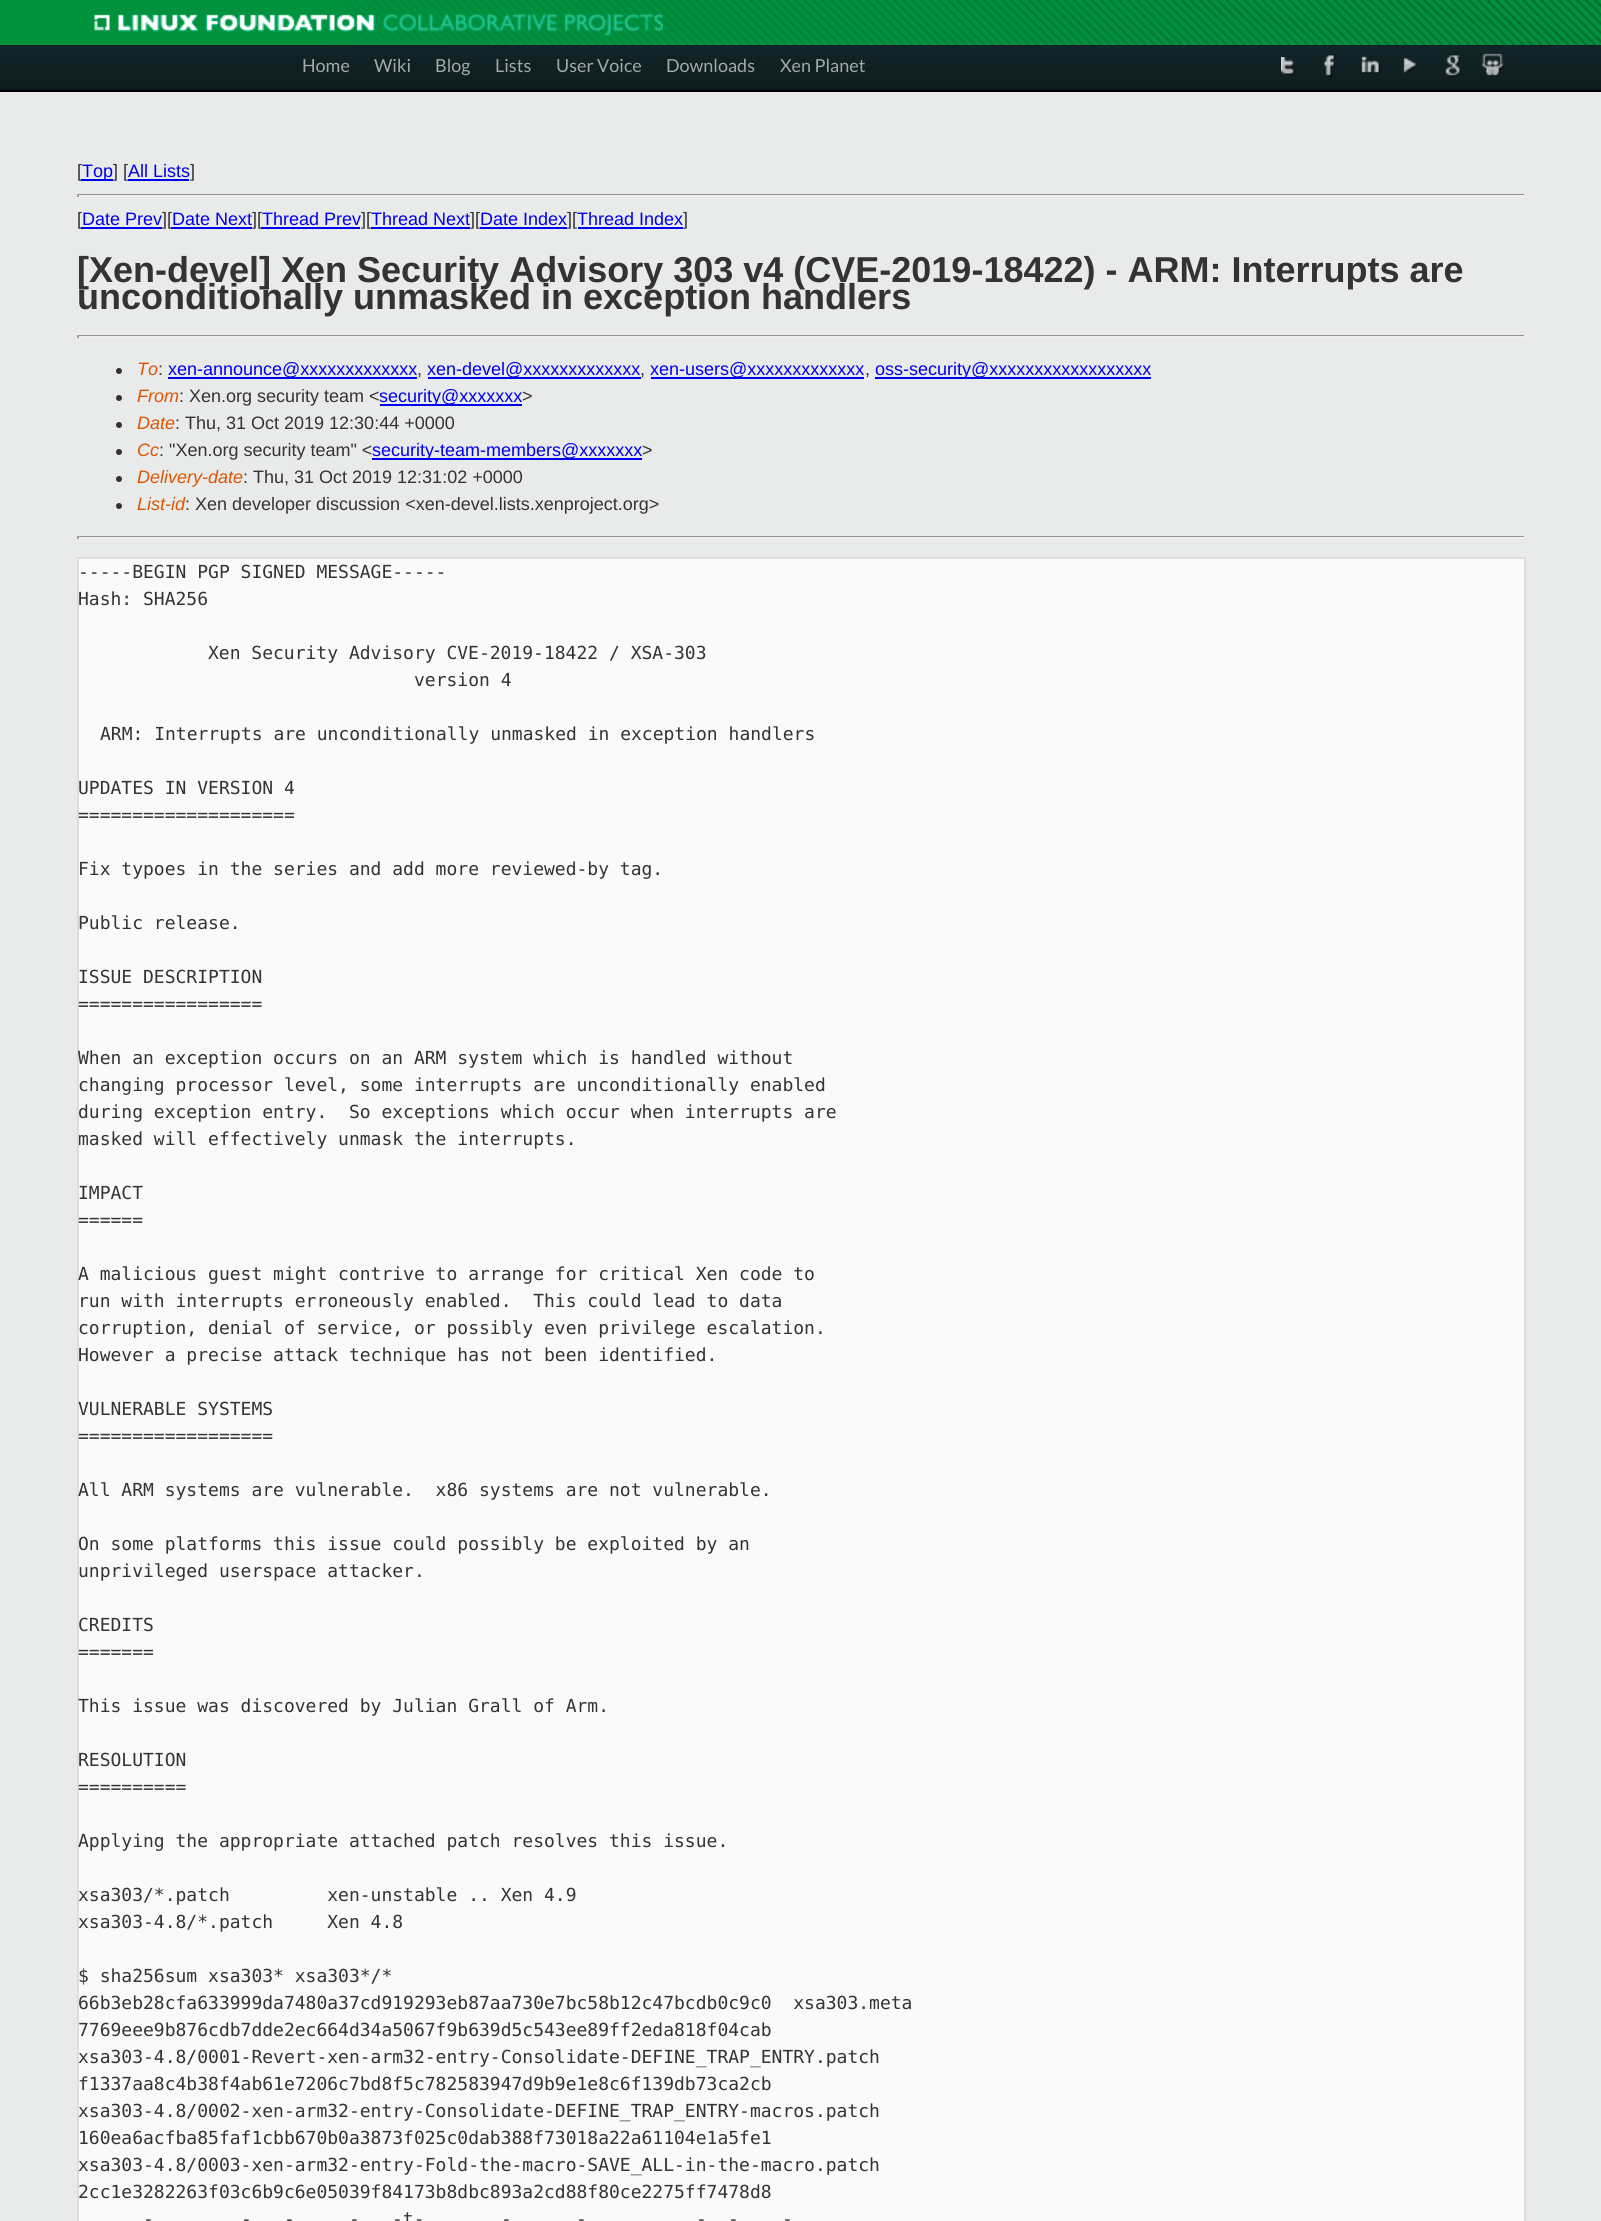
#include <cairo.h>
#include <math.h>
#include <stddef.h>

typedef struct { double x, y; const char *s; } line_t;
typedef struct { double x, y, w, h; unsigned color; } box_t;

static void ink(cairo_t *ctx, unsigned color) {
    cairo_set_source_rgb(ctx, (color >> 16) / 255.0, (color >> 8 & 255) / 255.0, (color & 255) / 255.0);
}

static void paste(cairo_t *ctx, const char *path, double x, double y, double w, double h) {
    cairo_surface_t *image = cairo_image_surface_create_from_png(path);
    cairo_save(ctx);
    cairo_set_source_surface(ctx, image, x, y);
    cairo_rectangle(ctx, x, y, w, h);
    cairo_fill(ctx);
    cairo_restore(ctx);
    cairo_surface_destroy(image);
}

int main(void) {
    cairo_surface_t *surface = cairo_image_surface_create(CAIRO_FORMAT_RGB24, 1601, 2221);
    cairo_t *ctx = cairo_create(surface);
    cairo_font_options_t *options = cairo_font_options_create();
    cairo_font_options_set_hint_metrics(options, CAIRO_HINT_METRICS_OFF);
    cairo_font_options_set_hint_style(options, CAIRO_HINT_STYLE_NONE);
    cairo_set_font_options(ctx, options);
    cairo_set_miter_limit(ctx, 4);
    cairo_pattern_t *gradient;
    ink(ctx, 0xE9EAEA);
    cairo_paint(ctx);
    paste(ctx, "media/1.png", 0, 0, 1601, 45);
    paste(ctx, "media/2.png", 94, 13, 569, 23);
    gradient = cairo_pattern_create_linear(801, 45, 801, 90);
    cairo_pattern_add_color_stop_rgba(gradient, 0, 0.071, 0.145, 0.161, 1);
    cairo_pattern_add_color_stop_rgba(gradient, 1, 0.051, 0.106, 0.118, 1);
    cairo_set_source(ctx, gradient);
    cairo_pattern_destroy(gradient);
    cairo_rectangle(ctx, 0, 45, 1601, 45);
    cairo_fill(ctx);
    ink(ctx, 0x000000);
    cairo_rectangle(ctx, 0, 90, 1601, 2);
    cairo_fill(ctx);
    cairo_select_font_face(ctx, "Lato", CAIRO_FONT_SLANT_NORMAL, CAIRO_FONT_WEIGHT_NORMAL);
    cairo_set_font_size(ctx, 18);
    ink(ctx, 0xA1A9AB);
    {
        static const line_t items[] = {
            {302, 72, "Home"},
            {374, 72, "Wiki"},
            {435, 72, "Blog"},
            {495, 72, "Lists"},
            {556, 72, "User Voice"},
            {666, 72, "Downloads"},
            {780, 72, "Xen Planet"},
        };
        for (size_t i = 0; i < sizeof items / sizeof *items; i++) {
            cairo_move_to(ctx, items[i].x, items[i].y);
            cairo_show_text(ctx, items[i].s);
        }
    }
    paste(ctx, "media/3.png", 1281, 57, 14, 18);
    paste(ctx, "media/4.png", 1324, 55, 11, 22);
    paste(ctx, "media/5.png", 1361, 56, 19, 18);
    paste(ctx, "media/6.png", 1403, 58, 15, 16);
    paste(ctx, "media/7.png", 1445, 55, 16, 22);
    paste(ctx, "media/8.png", 1481, 53, 24, 24);
    cairo_select_font_face(ctx, "Liberation Sans", CAIRO_FONT_SLANT_NORMAL, CAIRO_FONT_WEIGHT_NORMAL);
    ink(ctx, 0x333333);
    cairo_move_to(ctx, 77, 177);
    cairo_show_text(ctx, "[");
    ink(ctx, 0x0000EE);
    cairo_rectangle(ctx, 81, 179, 32, 2);
    cairo_fill(ctx);
    cairo_move_to(ctx, 82, 177);
    cairo_show_text(ctx, "Top");
    ink(ctx, 0x333333);
    cairo_move_to(ctx, 113, 177);
    cairo_show_text(ctx, "] [");
    ink(ctx, 0x0000EE);
    cairo_move_to(ctx, 128, 177);
    cairo_show_text(ctx, "All Lists");
    ink(ctx, 0x333333);
    cairo_move_to(ctx, 190, 177);
    cairo_show_text(ctx, "]");
    {
        static const box_t items[] = {
            {128, 179, 61, 2, 0x0000EE},
            {77, 194, 1449, 1, 0x939393},
            {1524, 194, 2, 3, 0xEEEEEE},
            {77, 195, 1449, 2, 0xEEEEEE},
            {77, 194, 2, 3, 0x9F9F9F},
        };
        for (size_t i = 0; i < sizeof items / sizeof *items; i++) {
            ink(ctx, items[i].color);
            cairo_rectangle(ctx, items[i].x, items[i].y, items[i].w, items[i].h);
            cairo_fill(ctx);
        }
    }
    ink(ctx, 0x333333);
    cairo_move_to(ctx, 77, 225);
    cairo_show_text(ctx, "[");
    ink(ctx, 0x0000EE);
    cairo_move_to(ctx, 82, 225);
    cairo_show_text(ctx, "Date Prev");
    cairo_rectangle(ctx, 81, 227, 81, 2);
    cairo_fill(ctx);
    ink(ctx, 0x333333);
    cairo_move_to(ctx, 162, 225);
    cairo_show_text(ctx, "][");
    ink(ctx, 0x0000EE);
    cairo_move_to(ctx, 172, 225);
    cairo_show_text(ctx, "Date Next");
    cairo_rectangle(ctx, 171, 227, 81, 2);
    cairo_fill(ctx);
    ink(ctx, 0x333333);
    cairo_move_to(ctx, 252, 225);
    cairo_show_text(ctx, "][");
    ink(ctx, 0x0000EE);
    cairo_move_to(ctx, 262, 225);
    cairo_show_text(ctx, "Thread Prev");
    cairo_rectangle(ctx, 261, 227, 99, 2);
    cairo_fill(ctx);
    ink(ctx, 0x333333);
    cairo_move_to(ctx, 361, 225);
    cairo_show_text(ctx, "][");
    ink(ctx, 0x0000EE);
    cairo_move_to(ctx, 371, 225);
    cairo_show_text(ctx, "Thread Next");
    cairo_rectangle(ctx, 371, 227, 99, 2);
    cairo_fill(ctx);
    ink(ctx, 0x333333);
    cairo_move_to(ctx, 470, 225);
    cairo_show_text(ctx, "][");
    ink(ctx, 0x0000EE);
    cairo_move_to(ctx, 480, 225);
    cairo_show_text(ctx, "Date Index");
    cairo_rectangle(ctx, 480, 227, 87, 2);
    cairo_fill(ctx);
    ink(ctx, 0x333333);
    cairo_move_to(ctx, 567, 225);
    cairo_show_text(ctx, "][");
    ink(ctx, 0x0000EE);
    cairo_move_to(ctx, 577, 225);
    cairo_show_text(ctx, "Thread Index");
    cairo_rectangle(ctx, 578, 227, 105, 2);
    cairo_fill(ctx);
    ink(ctx, 0x333333);
    cairo_move_to(ctx, 683, 225);
    cairo_show_text(ctx, "]");
    cairo_select_font_face(ctx, "Liberation Sans", CAIRO_FONT_SLANT_NORMAL, CAIRO_FONT_WEIGHT_BOLD);
    cairo_set_font_size(ctx, 36);
    cairo_move_to(ctx, 77, 282);
    cairo_show_text(ctx, "[Xen-devel] Xen Security Advisory 303 v4 (CVE-2019-18422) - ARM: Interrupts are");
    cairo_move_to(ctx, 77, 309);
    cairo_show_text(ctx, "unconditionally unmasked in exception handlers");
    {
        static const box_t items[] = {
            {77, 335, 1449, 1, 0x939393},
            {1524, 335, 2, 3, 0xEEEEEE},
            {77, 336, 1449, 2, 0xEEEEEE},
            {77, 335, 2, 3, 0x9F9F9F},
        };
        for (size_t i = 0; i < sizeof items / sizeof *items; i++) {
            ink(ctx, items[i].color);
            cairo_rectangle(ctx, items[i].x, items[i].y, items[i].w, items[i].h);
            cairo_fill(ctx);
        }
    }
    ink(ctx, 0x333333);
    cairo_new_path(ctx);
    cairo_arc(ctx, 119, 371, 3, 0, 2 * M_PI);
    cairo_fill(ctx);
    cairo_select_font_face(ctx, "Liberation Sans", CAIRO_FONT_SLANT_ITALIC, CAIRO_FONT_WEIGHT_NORMAL);
    cairo_set_font_size(ctx, 18);
    ink(ctx, 0xDD5500);
    cairo_move_to(ctx, 137, 375);
    cairo_show_text(ctx, "To");
    cairo_select_font_face(ctx, "Liberation Sans", CAIRO_FONT_SLANT_NORMAL, CAIRO_FONT_WEIGHT_NORMAL);
    ink(ctx, 0x333333);
    cairo_move_to(ctx, 158, 375);
    cairo_show_text(ctx, ":");
    ink(ctx, 0x0000EE);
    cairo_rectangle(ctx, 168, 377, 249, 2);
    cairo_fill(ctx);
    cairo_move_to(ctx, 168, 375);
    cairo_show_text(ctx, "xen-announce@xxxxxxxxxxxxx");
    cairo_rectangle(ctx, 428, 377, 213, 2);
    cairo_fill(ctx);
    cairo_move_to(ctx, 427, 375);
    cairo_show_text(ctx, "xen-devel@xxxxxxxxxxxxx");
    cairo_rectangle(ctx, 651, 377, 213, 2);
    cairo_fill(ctx);
    cairo_move_to(ctx, 650, 375);
    cairo_show_text(ctx, "xen-users@xxxxxxxxxxxxx");
    cairo_rectangle(ctx, 875, 377, 276, 2);
    cairo_fill(ctx);
    cairo_move_to(ctx, 875, 375);
    cairo_show_text(ctx, "oss-security@xxxxxxxxxxxxxxxxxx");
    ink(ctx, 0x333333);
    {
        static const line_t items[] = {
            {417, 375, ","},
            {640, 375, ","},
            {865, 375, ","},
        };
        for (size_t i = 0; i < sizeof items / sizeof *items; i++) {
            cairo_move_to(ctx, items[i].x, items[i].y);
            cairo_show_text(ctx, items[i].s);
        }
    }
    cairo_new_path(ctx);
    cairo_arc(ctx, 119, 398, 3, 0, 2 * M_PI);
    cairo_fill(ctx);
    cairo_select_font_face(ctx, "Liberation Sans", CAIRO_FONT_SLANT_ITALIC, CAIRO_FONT_WEIGHT_NORMAL);
    ink(ctx, 0xDD5500);
    cairo_move_to(ctx, 137, 402);
    cairo_show_text(ctx, "From");
    cairo_select_font_face(ctx, "Liberation Sans", CAIRO_FONT_SLANT_NORMAL, CAIRO_FONT_WEIGHT_NORMAL);
    ink(ctx, 0x333333);
    cairo_move_to(ctx, 179, 402);
    cairo_show_text(ctx, ": Xen.org security team <");
    ink(ctx, 0x0000EE);
    cairo_rectangle(ctx, 380, 404, 142, 2);
    cairo_fill(ctx);
    cairo_move_to(ctx, 379, 402);
    cairo_show_text(ctx, "security@xxxxxxx");
    ink(ctx, 0x333333);
    cairo_move_to(ctx, 522, 402);
    cairo_show_text(ctx, ">");
    cairo_new_path(ctx);
    cairo_arc(ctx, 119, 425, 3, 0, 2 * M_PI);
    cairo_fill(ctx);
    cairo_select_font_face(ctx, "Liberation Sans", CAIRO_FONT_SLANT_ITALIC, CAIRO_FONT_WEIGHT_NORMAL);
    ink(ctx, 0xDD5500);
    cairo_move_to(ctx, 137, 429);
    cairo_show_text(ctx, "Date");
    cairo_select_font_face(ctx, "Liberation Sans", CAIRO_FONT_SLANT_NORMAL, CAIRO_FONT_WEIGHT_NORMAL);
    ink(ctx, 0x333333);
    cairo_move_to(ctx, 175, 429);
    cairo_show_text(ctx, ": Thu, 31 Oct 2019 12:30:44 +0000");
    cairo_new_path(ctx);
    cairo_arc(ctx, 119, 452, 3, 0, 2 * M_PI);
    cairo_fill(ctx);
    cairo_select_font_face(ctx, "Liberation Sans", CAIRO_FONT_SLANT_ITALIC, CAIRO_FONT_WEIGHT_NORMAL);
    ink(ctx, 0xDD5500);
    cairo_move_to(ctx, 137, 456);
    cairo_show_text(ctx, "Cc");
    cairo_select_font_face(ctx, "Liberation Sans", CAIRO_FONT_SLANT_NORMAL, CAIRO_FONT_WEIGHT_NORMAL);
    ink(ctx, 0x333333);
    cairo_move_to(ctx, 159, 456);
    cairo_show_text(ctx, ": \"Xen.org security team\" <");
    ink(ctx, 0x0000EE);
    cairo_rectangle(ctx, 372, 458, 270, 2);
    cairo_fill(ctx);
    cairo_move_to(ctx, 372, 456);
    cairo_show_text(ctx, "security-team-members@xxxxxxx");
    ink(ctx, 0x333333);
    cairo_move_to(ctx, 642, 456);
    cairo_show_text(ctx, ">");
    cairo_new_path(ctx);
    cairo_arc(ctx, 119, 479, 3, 0, 2 * M_PI);
    cairo_fill(ctx);
    cairo_select_font_face(ctx, "Liberation Sans", CAIRO_FONT_SLANT_ITALIC, CAIRO_FONT_WEIGHT_NORMAL);
    ink(ctx, 0xDD5500);
    cairo_move_to(ctx, 137, 483);
    cairo_show_text(ctx, "Delivery-date");
    cairo_select_font_face(ctx, "Liberation Sans", CAIRO_FONT_SLANT_NORMAL, CAIRO_FONT_WEIGHT_NORMAL);
    ink(ctx, 0x333333);
    cairo_move_to(ctx, 243, 483);
    cairo_show_text(ctx, ": Thu, 31 Oct 2019 12:31:02 +0000");
    cairo_new_path(ctx);
    cairo_arc(ctx, 119, 506, 3, 0, 2 * M_PI);
    cairo_fill(ctx);
    cairo_select_font_face(ctx, "Liberation Sans", CAIRO_FONT_SLANT_ITALIC, CAIRO_FONT_WEIGHT_NORMAL);
    ink(ctx, 0xDD5500);
    cairo_move_to(ctx, 137, 510);
    cairo_show_text(ctx, "List-id");
    cairo_select_font_face(ctx, "Liberation Sans", CAIRO_FONT_SLANT_NORMAL, CAIRO_FONT_WEIGHT_NORMAL);
    ink(ctx, 0x333333);
    cairo_move_to(ctx, 185, 510);
    cairo_show_text(ctx, ": Xen developer discussion <xen-devel.lists.xenproject.org>");
    {
        static const box_t items[] = {
            {77, 536, 1449, 1, 0x939393},
            {1524, 536, 2, 3, 0xEEEEEE},
            {77, 537, 1449, 2, 0xEEEEEE},
            {77, 536, 2, 3, 0x9F9F9F},
        };
        for (size_t i = 0; i < sizeof items / sizeof *items; i++) {
            ink(ctx, items[i].color);
            cairo_rectangle(ctx, items[i].x, items[i].y, items[i].w, items[i].h);
            cairo_fill(ctx);
        }
    }
    ink(ctx, 0xFAFAFA);
    cairo_rectangle(ctx, 78, 558, 1447, 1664);
    cairo_fill_preserve(ctx);
    ink(ctx, 0xDDDDDD);
    cairo_stroke(ctx);
    cairo_select_font_face(ctx, "DejaVu Sans Mono", CAIRO_FONT_SLANT_NORMAL, CAIRO_FONT_WEIGHT_NORMAL);
    ink(ctx, 0x333333);
    {
        static const line_t items[] = {
            {78, 578, "-----BEGIN PGP SIGNED MESSAGE-----"},
            {78, 605, "Hash: SHA256"},
            {208, 659, "Xen Security Advisory CVE-2019-18422 / XSA-303"},
            {414, 686, "version 4"},
            {100, 740, "ARM: Interrupts are unconditionally unmasked in exception handlers"},
            {78, 794, "UPDATES IN VERSION 4"},
            {78, 821, "===================="},
            {78, 875, "Fix typoes in the series and add more reviewed-by tag."},
            {78, 929, "Public release."},
            {78, 983, "ISSUE DESCRIPTION"},
            {78, 1010, "================="},
            {78, 1064, "When an exception occurs on an ARM system which is handled without"},
            {78, 1091, "changing processor level, some interrupts are unconditionally enabled"},
            {78, 1118, "during exception entry.  So exceptions which occur when interrupts are"},
            {78, 1145, "masked will effectively unmask the interrupts."},
            {78, 1199, "IMPACT"},
            {78, 1226, "======"},
            {78, 1280, "A malicious guest might contrive to arrange for critical Xen code to"},
            {78, 1307, "run with interrupts erroneously enabled.  This could lead to data"},
            {78, 1334, "corruption, denial of service, or possibly even privilege escalation."},
            {78, 1361, "However a precise attack technique has not been identified."},
            {78, 1415, "VULNERABLE SYSTEMS"},
            {78, 1442, "=================="},
            {78, 1496, "All ARM systems are vulnerable.  x86 systems are not vulnerable."},
            {78, 1550, "On some platforms this issue could possibly be exploited by an"},
            {78, 1577, "unprivileged userspace attacker."},
            {78, 1631, "CREDITS"},
            {78, 1658, "======="},
            {78, 1712, "This issue was discovered by Julian Grall of Arm."},
            {78, 1766, "RESOLUTION"},
            {78, 1793, "=========="},
            {78, 1847, "Applying the appropriate attached patch resolves this issue."},
            {78, 1901, "xsa303/*.patch         xen-unstable .. Xen 4.9"},
            {78, 1928, "xsa303-4.8/*.patch     Xen 4.8"},
            {78, 1982, "$ sha256sum xsa303* xsa303*/*"},
            {78, 2009, "66b3eb28cfa633999da7480a37cd919293eb87aa730e7bc58b12c47bcdb0c9c0  xsa303.meta"},
            {78, 2036, "7769eee9b876cdb7dde2ec664d34a5067f9b639d5c543ee89ff2eda818f04cab"},
            {78, 2063, "xsa303-4.8/0001-Revert-xen-arm32-entry-Consolidate-DEFINE_TRAP_ENTRY.patch"},
            {78, 2090, "f1337aa8c4b38f4ab61e7206c7bd8f5c782583947d9b9e1e8c6f139db73ca2cb"},
            {78, 2117, "xsa303-4.8/0002-xen-arm32-entry-Consolidate-DEFINE_TRAP_ENTRY-macros.patch"},
            {78, 2144, "160ea6acfba85faf1cbb670b0a3873f025c0dab388f73018a22a61104e1a5fe1"},
            {78, 2171, "xsa303-4.8/0003-xen-arm32-entry-Fold-the-macro-SAVE_ALL-in-the-macro.patch"},
            {78, 2198, "2cc1e3282263f03c6b9c6e05039f84173b8dbc893a2cd88f80ce2275ff7478d8"},
            {143, 2225, "-"},
            {241, 2225, "-"},
            {284, 2225, "-"},
            {349, 2225, "-"},
            {392, 2225, "-t-"},
            {501, 2225, "-"},
            {576, 2225, "-"},
            {696, 2225, "-"},
            {728, 2225, "-"},
            {782, 2225, "-"},
        };
        for (size_t i = 0; i < sizeof items / sizeof *items; i++) {
            cairo_move_to(ctx, items[i].x, items[i].y);
            cairo_show_text(ctx, items[i].s);
        }
    }
    cairo_surface_write_to_png(surface, "image.png");
    cairo_font_options_destroy(options);
    cairo_destroy(ctx);
    cairo_surface_destroy(surface);
    return 0;
}
